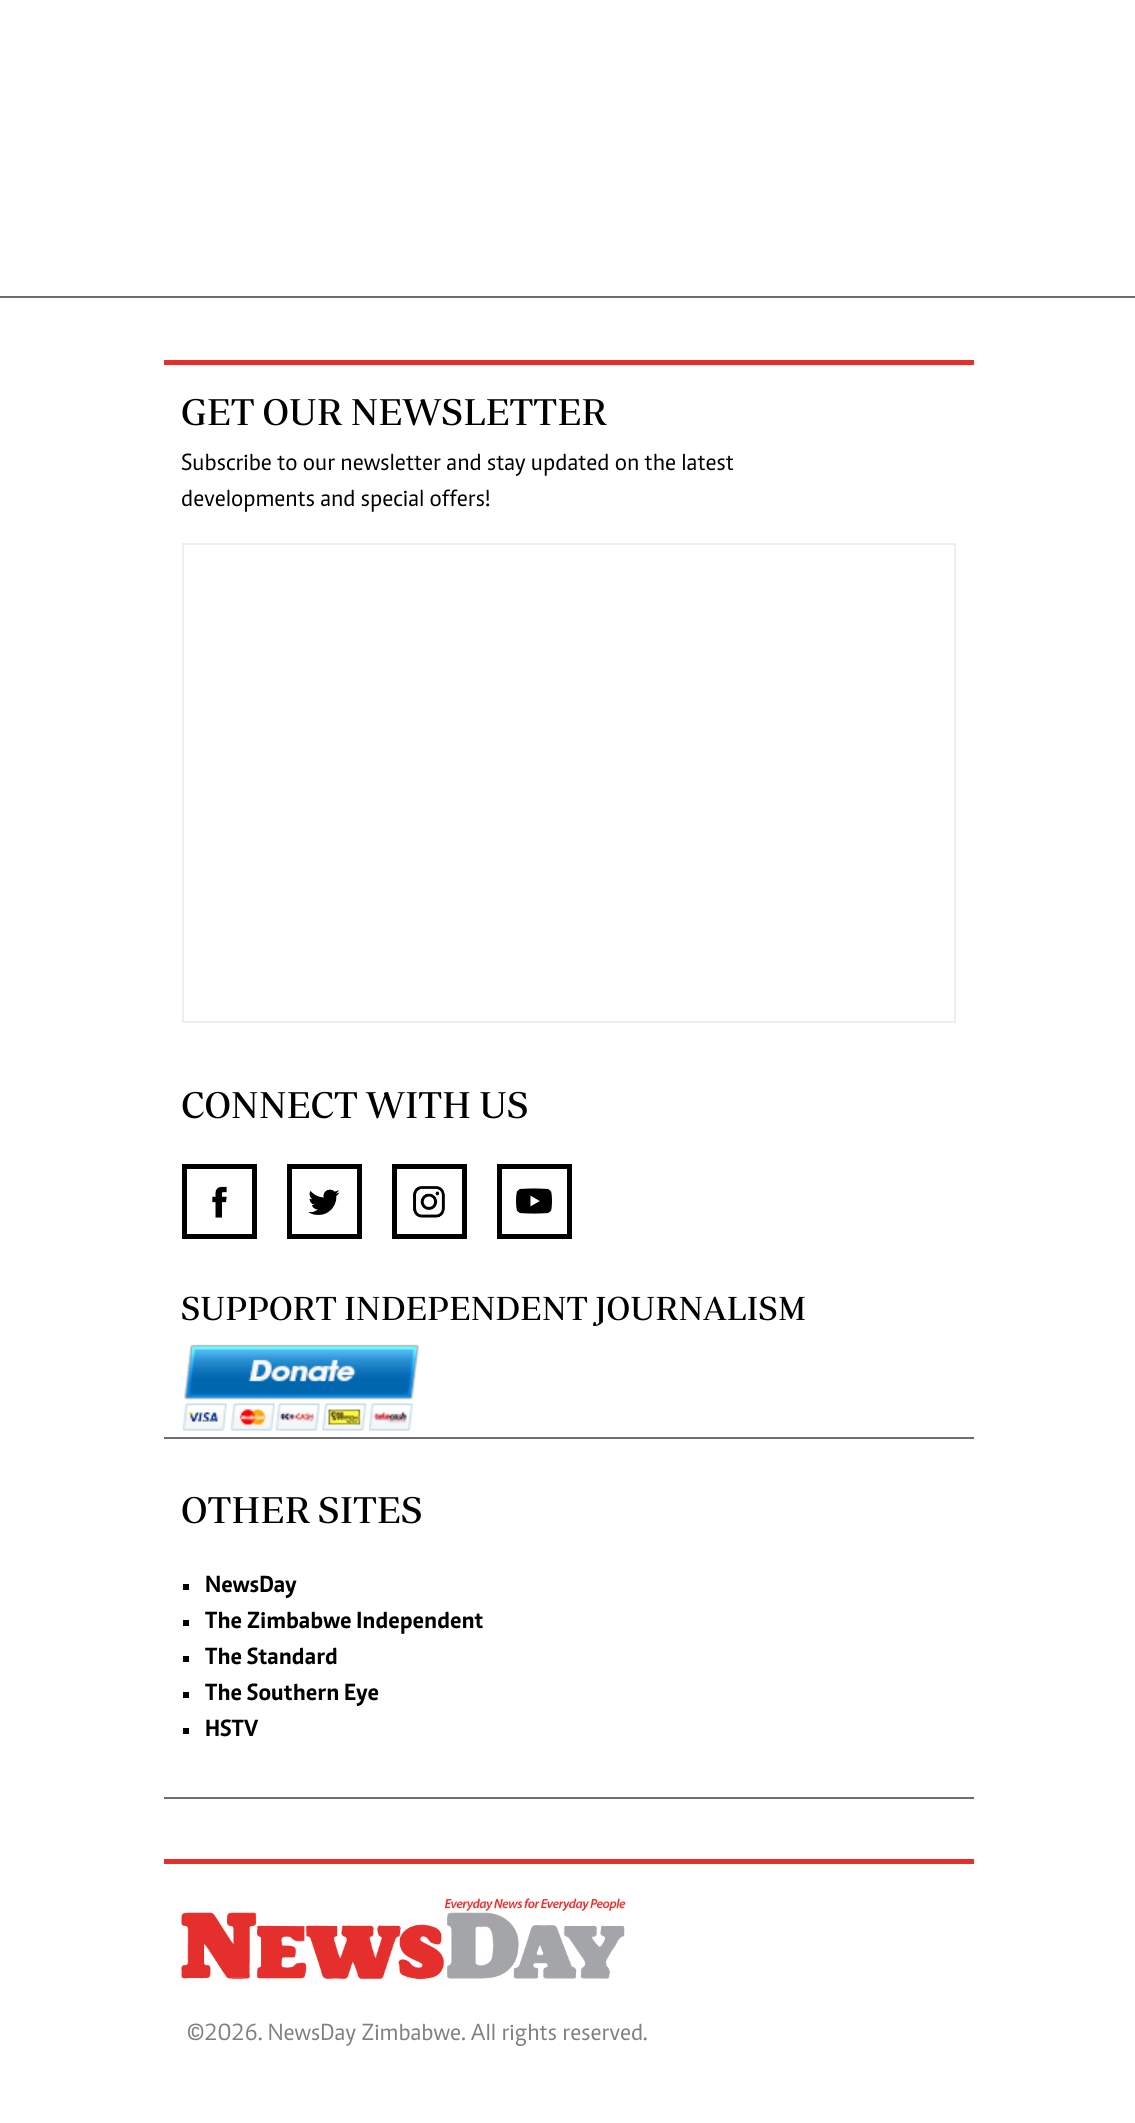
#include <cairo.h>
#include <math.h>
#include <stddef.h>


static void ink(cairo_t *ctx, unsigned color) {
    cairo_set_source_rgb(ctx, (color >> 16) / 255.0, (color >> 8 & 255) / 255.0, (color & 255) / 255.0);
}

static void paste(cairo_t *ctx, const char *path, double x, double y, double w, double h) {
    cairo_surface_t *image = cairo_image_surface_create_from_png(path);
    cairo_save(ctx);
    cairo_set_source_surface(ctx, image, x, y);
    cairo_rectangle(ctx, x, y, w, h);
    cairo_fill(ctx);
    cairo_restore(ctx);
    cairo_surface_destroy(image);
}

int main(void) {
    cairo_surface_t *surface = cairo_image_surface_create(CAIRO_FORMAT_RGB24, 1135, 2123);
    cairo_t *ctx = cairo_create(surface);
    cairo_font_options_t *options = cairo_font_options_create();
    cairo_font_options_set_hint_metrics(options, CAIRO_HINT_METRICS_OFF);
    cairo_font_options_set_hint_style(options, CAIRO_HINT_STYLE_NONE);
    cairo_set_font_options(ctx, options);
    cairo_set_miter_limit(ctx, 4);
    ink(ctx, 0xFFFFFF);
    cairo_paint(ctx);
    ink(ctx, 0x6E6D6D);
    cairo_rectangle(ctx, 0, 296, 1135, 2);
    cairo_fill(ctx);
    ink(ctx, 0xE52F2D);
    cairo_rectangle(ctx, 164, 360, 810, 5);
    cairo_fill(ctx);
    cairo_select_font_face(ctx, "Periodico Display", CAIRO_FONT_SLANT_NORMAL, CAIRO_FONT_WEIGHT_NORMAL);
    cairo_set_font_size(ctx, 38);
    ink(ctx, 0x000000);
    cairo_move_to(ctx, 181, 425);
    cairo_show_text(ctx, "GET OUR NEWSLETTER");
    cairo_select_font_face(ctx, "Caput", CAIRO_FONT_SLANT_NORMAL, CAIRO_FONT_WEIGHT_NORMAL);
    cairo_set_font_size(ctx, 24);
    cairo_move_to(ctx, 181, 470);
    cairo_show_text(ctx, "Subscribe to our newsletter and stay updated on the latest");
    cairo_move_to(ctx, 181, 506);
    cairo_show_text(ctx, "developments and special offers!");
    cairo_rectangle(ctx, 183, 544, 772, 478);
    ink(ctx, 0xEEEEEE);
    cairo_stroke(ctx);
    ink(ctx, 0x6E6D6D);
    cairo_rectangle(ctx, 164, 1437, 810, 2);
    cairo_fill(ctx);
    cairo_select_font_face(ctx, "Periodico Display", CAIRO_FONT_SLANT_NORMAL, CAIRO_FONT_WEIGHT_NORMAL);
    cairo_set_font_size(ctx, 38);
    ink(ctx, 0x000000);
    cairo_move_to(ctx, 181, 1118);
    cairo_show_text(ctx, "CONNECT WITH US");
    cairo_rectangle(ctx, 184.5, 1166.5, 70, 70);
    cairo_set_line_width(ctx, 5);
    cairo_stroke(ctx);
    paste(ctx, "media/1.png", 212, 1186, 15, 32);
    cairo_rectangle(ctx, 289.5, 1166.5, 70, 70);
    cairo_stroke(ctx);
    paste(ctx, "media/2.png", 308, 1189, 32, 26);
    cairo_rectangle(ctx, 394.5, 1166.5, 70, 70);
    cairo_stroke(ctx);
    paste(ctx, "media/3.png", 413, 1186, 32, 32);
    cairo_rectangle(ctx, 499.5, 1166.5, 70, 70);
    cairo_stroke(ctx);
    paste(ctx, "media/4.png", 516, 1188, 36, 26);
    cairo_set_font_size(ctx, 34);
    cairo_move_to(ctx, 181, 1320);
    cairo_show_text(ctx, "SUPPORT INDEPENDENT JOURNALISM");
    paste(ctx, "media/5.png", 182, 1344, 237, 87);
    ink(ctx, 0x6E6D6D);
    cairo_rectangle(ctx, 164, 1797, 810, 2);
    cairo_fill(ctx);
    cairo_set_font_size(ctx, 38);
    ink(ctx, 0x000000);
    cairo_move_to(ctx, 181, 1523);
    cairo_show_text(ctx, "OTHER SITES");
    cairo_rectangle(ctx, 183, 1584, 6, 6);
    cairo_fill(ctx);
    cairo_select_font_face(ctx, "Caput", CAIRO_FONT_SLANT_NORMAL, CAIRO_FONT_WEIGHT_BOLD);
    cairo_set_font_size(ctx, 24);
    cairo_move_to(ctx, 205, 1592);
    cairo_show_text(ctx, "NewsDay");
    cairo_rectangle(ctx, 183, 1620, 6, 6);
    cairo_fill(ctx);
    cairo_move_to(ctx, 205, 1628);
    cairo_show_text(ctx, "The Zimbabwe Independent");
    cairo_rectangle(ctx, 183, 1656, 6, 6);
    cairo_fill(ctx);
    cairo_move_to(ctx, 205, 1664);
    cairo_show_text(ctx, "The Standard");
    cairo_rectangle(ctx, 183, 1692, 6, 6);
    cairo_fill(ctx);
    cairo_move_to(ctx, 205, 1700);
    cairo_show_text(ctx, "The Southern Eye");
    cairo_rectangle(ctx, 183, 1728, 6, 6);
    cairo_fill(ctx);
    cairo_move_to(ctx, 205, 1736);
    cairo_show_text(ctx, "HSTV");
    ink(ctx, 0xE52F2D);
    cairo_rectangle(ctx, 164, 1859, 810, 5);
    cairo_fill(ctx);
    paste(ctx, "media/6.png", 181, 1898, 445, 81);
    cairo_select_font_face(ctx, "Caput", CAIRO_FONT_SLANT_NORMAL, CAIRO_FONT_WEIGHT_NORMAL);
    ink(ctx, 0x808080);
    cairo_move_to(ctx, 187, 2040);
    cairo_show_text(ctx, "©2026. NewsDay Zimbabwe. All rights reserved.");
    cairo_surface_write_to_png(surface, "image.png");
    cairo_font_options_destroy(options);
    cairo_destroy(ctx);
    cairo_surface_destroy(surface);
    return 0;
}
